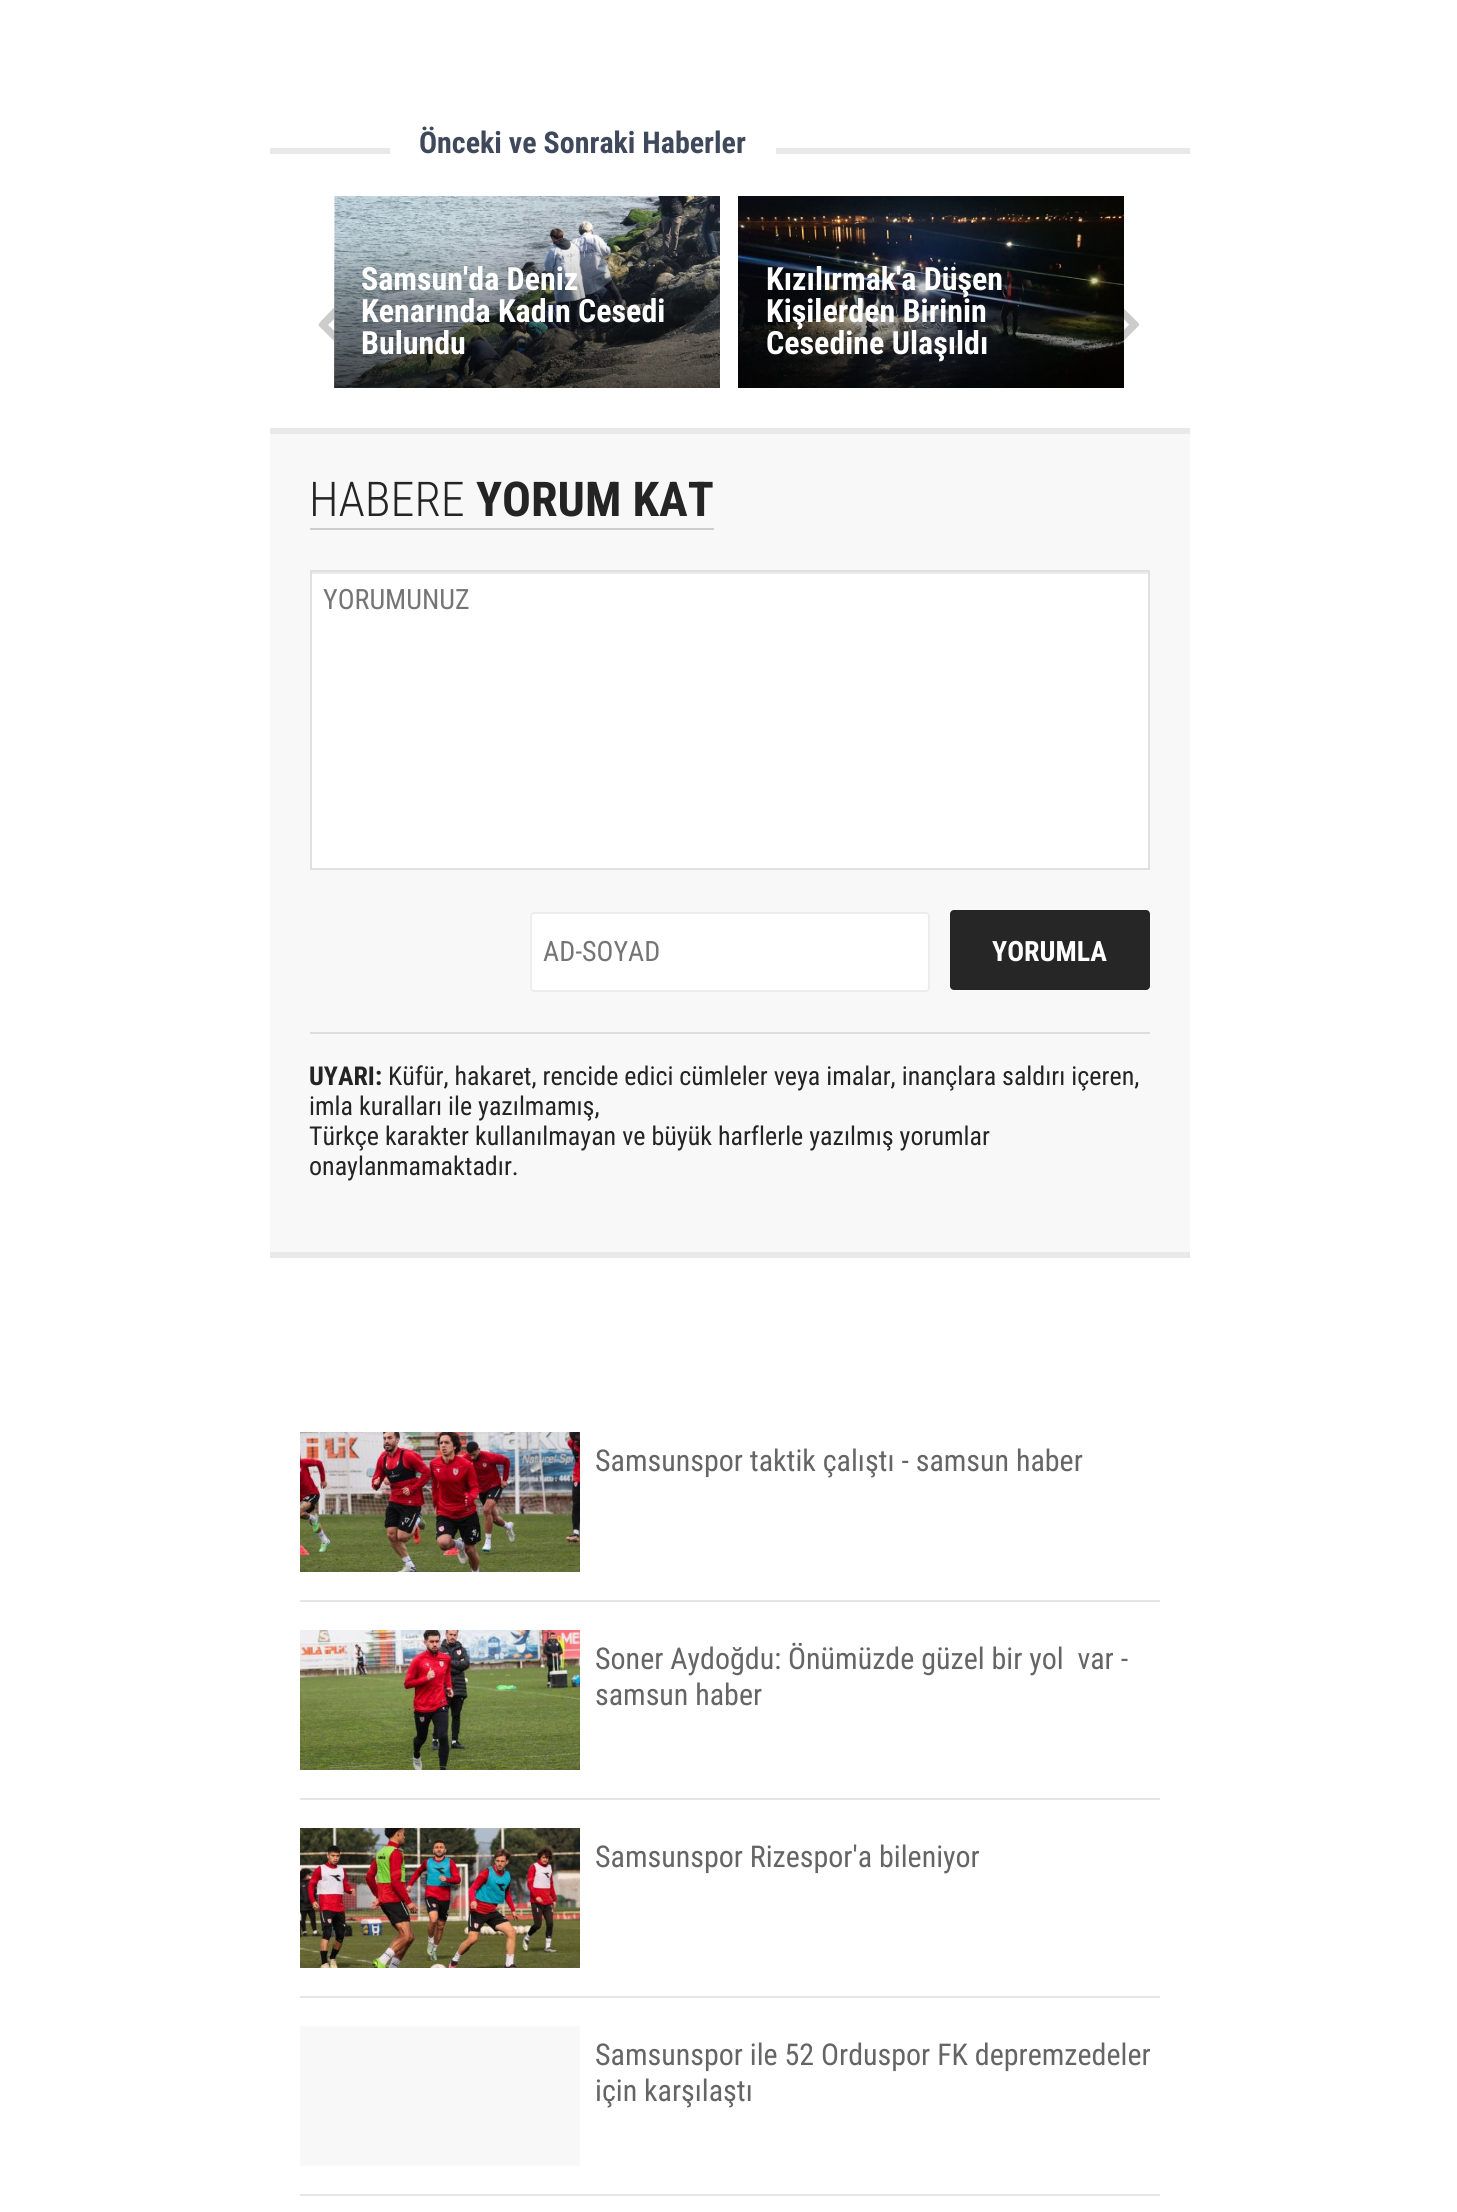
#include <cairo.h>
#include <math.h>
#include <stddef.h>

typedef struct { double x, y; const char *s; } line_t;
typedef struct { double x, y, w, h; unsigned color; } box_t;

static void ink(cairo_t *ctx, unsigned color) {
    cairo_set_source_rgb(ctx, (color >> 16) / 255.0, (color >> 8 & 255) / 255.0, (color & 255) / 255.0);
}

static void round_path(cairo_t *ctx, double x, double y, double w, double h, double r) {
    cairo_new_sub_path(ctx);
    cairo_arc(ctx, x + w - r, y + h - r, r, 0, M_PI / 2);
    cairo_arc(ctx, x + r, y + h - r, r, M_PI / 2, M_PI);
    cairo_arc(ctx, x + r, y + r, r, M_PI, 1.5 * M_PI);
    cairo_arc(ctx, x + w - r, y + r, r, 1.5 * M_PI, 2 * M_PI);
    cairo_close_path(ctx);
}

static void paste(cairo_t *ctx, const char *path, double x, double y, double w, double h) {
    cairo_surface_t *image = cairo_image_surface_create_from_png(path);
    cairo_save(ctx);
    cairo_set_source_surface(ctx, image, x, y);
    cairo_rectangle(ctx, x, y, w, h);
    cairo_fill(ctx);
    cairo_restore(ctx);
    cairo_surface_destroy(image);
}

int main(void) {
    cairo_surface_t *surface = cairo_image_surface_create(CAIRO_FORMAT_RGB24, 1457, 2212);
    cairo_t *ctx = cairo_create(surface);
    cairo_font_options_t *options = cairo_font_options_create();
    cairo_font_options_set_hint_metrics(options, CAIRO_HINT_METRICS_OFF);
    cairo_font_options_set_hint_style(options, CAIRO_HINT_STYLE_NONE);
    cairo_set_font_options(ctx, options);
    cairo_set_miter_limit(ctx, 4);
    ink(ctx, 0xFFFFFF);
    cairo_paint(ctx);
    ink(ctx, 0xE9E9E9);
    cairo_rectangle(ctx, 270, 148, 920, 6);
    cairo_fill(ctx);
    ink(ctx, 0xFFFFFF);
    cairo_rectangle(ctx, 390, 148, 386, 6);
    cairo_fill(ctx);
    cairo_select_font_face(ctx, "Roboto Condensed", CAIRO_FONT_SLANT_NORMAL, CAIRO_FONT_WEIGHT_BOLD);
    cairo_set_font_size(ctx, 30);
    ink(ctx, 0x3F495B);
    cairo_move_to(ctx, 419, 153);
    cairo_show_text(ctx, "Önceki ve Sonraki Haberler");
    ink(ctx, 0xCCCCCC);
    cairo_new_path(ctx);
    cairo_move_to(ctx, 351, 301);
    cairo_curve_to(ctx, 351, 303, 331, 322, 328, 325);
    cairo_curve_to(ctx, 331, 328, 352, 346, 351, 348);
    cairo_line_to(ctx, 349, 350);
    cairo_curve_to(ctx, 345, 354, 345, 352, 341, 348);
    cairo_line_to(ctx, 323, 330);
    cairo_curve_to(ctx, 317, 324, 317, 326, 323, 319);
    cairo_curve_to(ctx, 326, 316, 344, 296, 347, 297);
    cairo_curve_to(ctx, 348, 297, 351, 300, 351, 301);
    cairo_close_path(ctx);
    cairo_fill(ctx);
    paste(ctx, "media/1.png", 334, 196, 386, 192);
    cairo_set_font_size(ctx, 32);
    ink(ctx, 0xFFFFFF);
    {
        static const line_t items[] = {
            {361, 290, "Samsun'da Deniz"},
            {361, 322, "Kenarında Kadın Cesedi"},
            {361, 354, "Bulundu"},
        };
        for (size_t i = 0; i < sizeof items / sizeof *items; i++) {
            cairo_move_to(ctx, items[i].x, items[i].y);
            cairo_show_text(ctx, items[i].s);
        }
    }
    paste(ctx, "media/2.png", 738, 196, 386, 192);
    {
        static const line_t items[] = {
            {766, 290, "Kızılırmak'a Düşen"},
            {766, 322, "Kişilerden Birinin"},
            {766, 354, "Cesedine Ulaşıldı"},
        };
        for (size_t i = 0; i < sizeof items / sizeof *items; i++) {
            cairo_move_to(ctx, items[i].x, items[i].y);
            cairo_show_text(ctx, items[i].s);
        }
    }
    paste(ctx, "media/3.png", 1124, 308, 16, 33);
    {
        static const box_t items[] = {
            {270, 434, 920, 818, 0xF8F8F8},
            {270, 428, 920, 6, 0xE9E9E9},
            {270, 1252, 920, 6, 0xE9E9E9},
            {310, 528, 404, 2, 0xCECECE},
        };
        for (size_t i = 0; i < sizeof items / sizeof *items; i++) {
            ink(ctx, items[i].color);
            cairo_rectangle(ctx, items[i].x, items[i].y, items[i].w, items[i].h);
            cairo_fill(ctx);
        }
    }
    cairo_select_font_face(ctx, "Roboto Condensed Light", CAIRO_FONT_SLANT_NORMAL, CAIRO_FONT_WEIGHT_NORMAL);
    cairo_set_font_size(ctx, 48);
    ink(ctx, 0x242424);
    cairo_move_to(ctx, 309, 516);
    cairo_show_text(ctx, "HABERE");
    cairo_select_font_face(ctx, "Roboto Condensed", CAIRO_FONT_SLANT_NORMAL, CAIRO_FONT_WEIGHT_BOLD);
    cairo_move_to(ctx, 476, 516);
    cairo_show_text(ctx, "YORUM KAT");
    ink(ctx, 0xFFFFFF);
    cairo_rectangle(ctx, 312, 574, 836, 294);
    cairo_fill(ctx);
    ink(ctx, 0xECECEC);
    cairo_rectangle(ctx, 312, 572, 836, 2);
    cairo_fill(ctx);
    cairo_rectangle(ctx, 311, 571, 838, 298);
    ink(ctx, 0xE0E0E0);
    cairo_stroke(ctx);
    cairo_select_font_face(ctx, "Roboto Condensed", CAIRO_FONT_SLANT_NORMAL, CAIRO_FONT_WEIGHT_NORMAL);
    cairo_set_font_size(ctx, 28);
    ink(ctx, 0x757575);
    cairo_move_to(ctx, 323, 609);
    cairo_show_text(ctx, "YORUMUNUZ");
    ink(ctx, 0xFFFFFF);
    round_path(ctx, 531, 913, 398, 78, 3);
    cairo_fill_preserve(ctx);
    ink(ctx, 0xEDEDED);
    cairo_stroke(ctx);
    ink(ctx, 0x757575);
    cairo_move_to(ctx, 543, 961);
    cairo_show_text(ctx, "AD-SOYAD");
    ink(ctx, 0x262626);
    round_path(ctx, 950, 910, 200, 80, 4);
    cairo_fill(ctx);
    cairo_select_font_face(ctx, "Roboto Condensed", CAIRO_FONT_SLANT_NORMAL, CAIRO_FONT_WEIGHT_BOLD);
    ink(ctx, 0xFFFFFF);
    cairo_move_to(ctx, 992, 961);
    cairo_show_text(ctx, "YORUMLA");
    ink(ctx, 0xDDDDDD);
    cairo_rectangle(ctx, 310, 1032, 840, 2);
    cairo_fill(ctx);
    cairo_set_font_size(ctx, 26);
    ink(ctx, 0x242424);
    cairo_move_to(ctx, 309, 1085);
    cairo_show_text(ctx, "UYARI:");
    cairo_select_font_face(ctx, "Roboto Condensed", CAIRO_FONT_SLANT_NORMAL, CAIRO_FONT_WEIGHT_NORMAL);
    {
        static const line_t items[] = {
            {388, 1085, "Küfür, hakaret, rencide edici cümleler veya imalar, inançlara saldırı içeren,"},
            {309, 1115, "imla kuralları ile yazılmamış,"},
            {309, 1145, "Türkçe karakter kullanılmayan ve büyük harflerle yazılmış yorumlar"},
            {309, 1175, "onaylanmamaktadır."},
        };
        for (size_t i = 0; i < sizeof items / sizeof *items; i++) {
            cairo_move_to(ctx, items[i].x, items[i].y);
            cairo_show_text(ctx, items[i].s);
        }
    }
    ink(ctx, 0xE5E5E5);
    cairo_rectangle(ctx, 300, 1600, 860, 2);
    cairo_fill(ctx);
    paste(ctx, "media/4.png", 300, 1432, 280, 140);
    cairo_set_font_size(ctx, 30);
    ink(ctx, 0x656565);
    cairo_move_to(ctx, 595, 1471);
    cairo_show_text(ctx, "Samsunspor taktik çalıştı - samsun haber");
    ink(ctx, 0xE5E5E5);
    cairo_rectangle(ctx, 300, 1798, 860, 2);
    cairo_fill(ctx);
    paste(ctx, "media/5.png", 300, 1630, 280, 140);
    ink(ctx, 0x656565);
    cairo_move_to(ctx, 595, 1669);
    cairo_show_text(ctx, "Soner Aydoğdu: Önümüzde güzel bir yol  var -");
    cairo_move_to(ctx, 595, 1705);
    cairo_show_text(ctx, "samsun haber");
    ink(ctx, 0xE5E5E5);
    cairo_rectangle(ctx, 300, 1996, 860, 2);
    cairo_fill(ctx);
    paste(ctx, "media/6.png", 300, 1828, 280, 140);
    ink(ctx, 0x656565);
    cairo_move_to(ctx, 595, 1867);
    cairo_show_text(ctx, "Samsunspor Rizespor'a bileniyor");
    ink(ctx, 0xE5E5E5);
    cairo_rectangle(ctx, 300, 2194, 860, 2);
    cairo_fill(ctx);
    ink(ctx, 0xF8F8F8);
    cairo_rectangle(ctx, 300, 2026, 280, 140);
    cairo_fill(ctx);
    ink(ctx, 0x656565);
    cairo_move_to(ctx, 595, 2065);
    cairo_show_text(ctx, "Samsunspor ile 52 Orduspor FK depremzedeler");
    cairo_move_to(ctx, 595, 2101);
    cairo_show_text(ctx, "için karşılaştı");
    cairo_surface_write_to_png(surface, "image.png");
    cairo_font_options_destroy(options);
    cairo_destroy(ctx);
    cairo_surface_destroy(surface);
    return 0;
}
